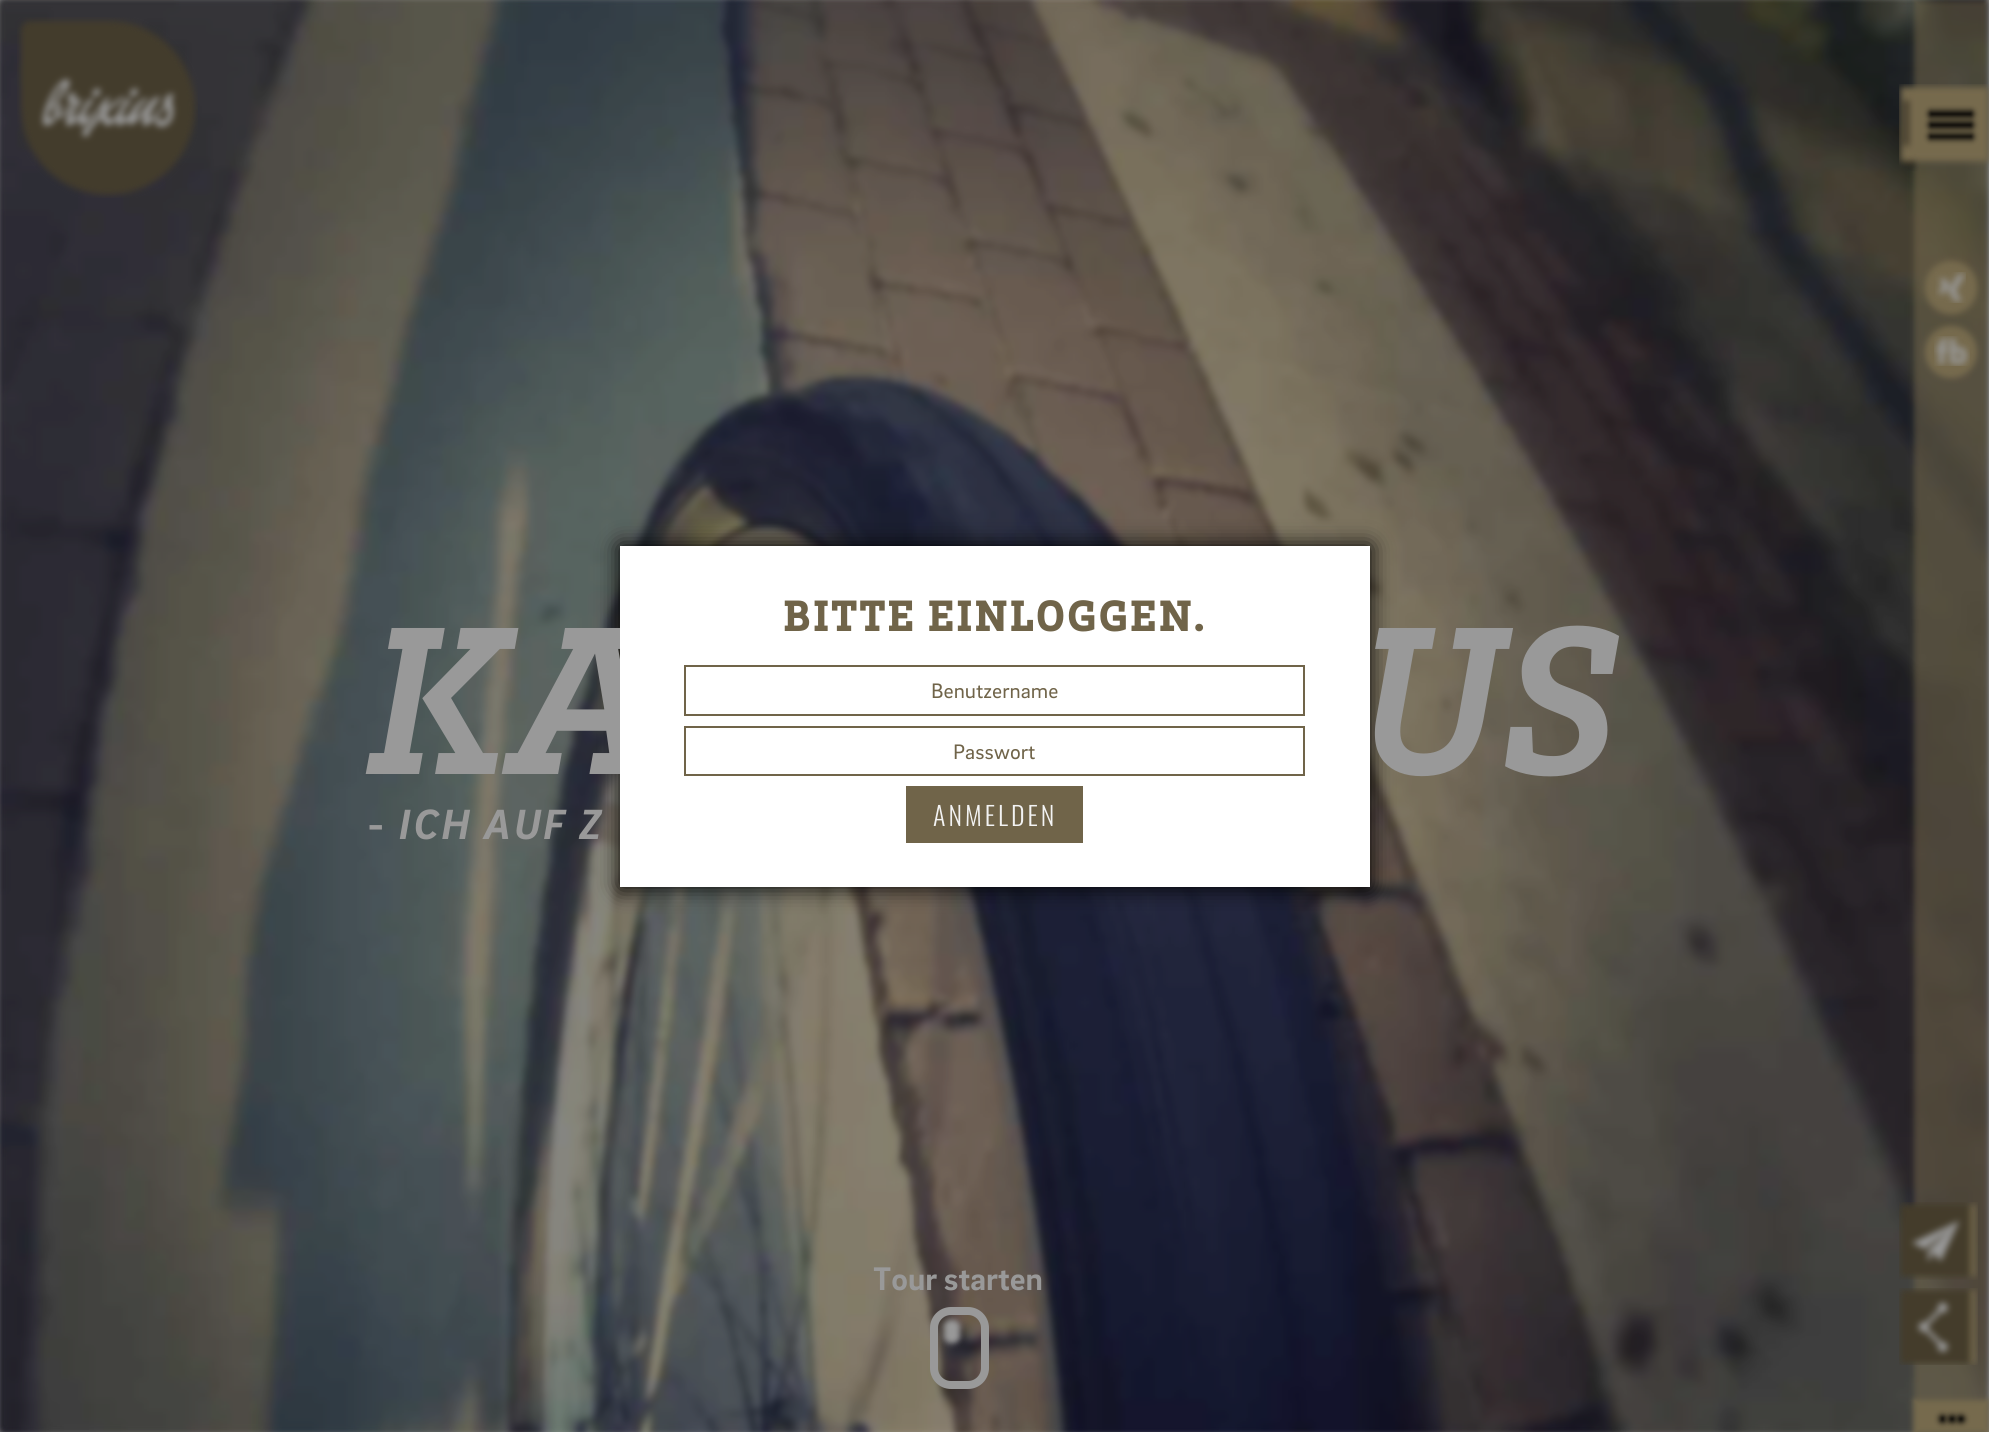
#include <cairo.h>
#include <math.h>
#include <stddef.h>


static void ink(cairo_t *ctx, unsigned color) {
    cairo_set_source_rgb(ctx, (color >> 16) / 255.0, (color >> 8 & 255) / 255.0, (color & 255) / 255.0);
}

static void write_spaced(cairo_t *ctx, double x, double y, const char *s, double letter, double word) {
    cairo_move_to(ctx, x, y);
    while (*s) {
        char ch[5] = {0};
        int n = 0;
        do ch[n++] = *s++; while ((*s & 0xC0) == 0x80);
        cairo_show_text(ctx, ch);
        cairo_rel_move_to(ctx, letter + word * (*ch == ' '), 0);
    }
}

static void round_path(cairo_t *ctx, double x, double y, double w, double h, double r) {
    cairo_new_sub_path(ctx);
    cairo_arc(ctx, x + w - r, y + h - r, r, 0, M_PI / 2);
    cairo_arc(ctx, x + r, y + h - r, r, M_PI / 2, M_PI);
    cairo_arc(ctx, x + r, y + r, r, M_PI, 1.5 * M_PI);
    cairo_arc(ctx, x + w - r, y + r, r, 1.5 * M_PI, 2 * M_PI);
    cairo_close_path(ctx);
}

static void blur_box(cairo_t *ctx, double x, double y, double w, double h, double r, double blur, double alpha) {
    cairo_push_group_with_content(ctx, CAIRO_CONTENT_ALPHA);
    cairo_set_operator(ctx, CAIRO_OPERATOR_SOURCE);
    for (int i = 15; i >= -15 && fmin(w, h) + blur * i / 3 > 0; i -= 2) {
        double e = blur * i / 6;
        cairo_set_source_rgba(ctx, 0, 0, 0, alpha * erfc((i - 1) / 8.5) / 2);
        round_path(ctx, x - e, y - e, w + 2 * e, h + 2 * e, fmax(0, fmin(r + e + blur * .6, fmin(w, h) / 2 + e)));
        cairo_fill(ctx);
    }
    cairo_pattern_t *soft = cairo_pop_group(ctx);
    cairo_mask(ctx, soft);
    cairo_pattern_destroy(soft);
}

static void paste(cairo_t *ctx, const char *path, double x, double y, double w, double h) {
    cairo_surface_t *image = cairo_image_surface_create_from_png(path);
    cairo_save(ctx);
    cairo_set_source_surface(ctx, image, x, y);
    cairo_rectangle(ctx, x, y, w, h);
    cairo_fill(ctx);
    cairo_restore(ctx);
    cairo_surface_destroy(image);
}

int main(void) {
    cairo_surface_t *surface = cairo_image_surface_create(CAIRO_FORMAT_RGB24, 1989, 1432);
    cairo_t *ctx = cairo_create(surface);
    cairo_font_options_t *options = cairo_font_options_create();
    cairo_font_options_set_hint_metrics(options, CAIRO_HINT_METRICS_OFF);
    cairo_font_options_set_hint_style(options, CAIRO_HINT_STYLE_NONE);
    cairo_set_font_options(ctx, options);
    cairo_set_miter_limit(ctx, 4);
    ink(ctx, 0x999999);
    cairo_paint(ctx);
    paste(ctx, "media/1.png", 0, 0, 1989, 1432);
    paste(ctx, "media/2.png", 0, 0, 1989, 1432);
    paste(ctx, "media/3.png", 0, 0, 1989, 1432);
    paste(ctx, "media/4.png", 17, 17, 181, 181);
    ink(ctx, 0x766A4D);
    blur_box(ctx, 1914, 0, 75, 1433, 0, 3, 0.53);
    ink(ctx, 0x999999);
    blur_box(ctx, 1989, 0, 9, 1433, 0, 3, 1);
    paste(ctx, "media/5.png", 1899, 84, 90, 87);
    ink(ctx, 0x000000);
    blur_box(ctx, 1929, 122, 44, 6, 3, 3, 1);
    blur_box(ctx, 1929, 111, 44, 6, 3, 3, 1);
    blur_box(ctx, 1929, 134, 44, 5, 2.5, 3, 1);
    ink(ctx, 0x766A4D);
    blur_box(ctx, 1925, 261, 52, 53, 26, 3, 1);
    paste(ctx, "media/6.png", 1935, 272, 31, 31);
    blur_box(ctx, 1925, 326, 52, 52, 26, 3, 1);
    paste(ctx, "media/7.png", 1934, 336, 36, 30);
    paste(ctx, "media/8.png", 1899, 1202, 79, 78);
    paste(ctx, "media/9.png", 1899, 1288, 79, 77);
    blur_box(ctx, 1914, 1400, 75, 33, 0, 3, 1);
    ink(ctx, 0x000000);
    blur_box(ctx, 1940, 1416, 5, 6, 2.5, 3, 1);
    blur_box(ctx, 1949, 1416, 6, 6, 3, 3, 1);
    blur_box(ctx, 1958, 1416, 6, 6, 3, 3, 1);
    blur_box(ctx, 620, 546, 750, 341, 0, 11, 1);
    cairo_select_font_face(ctx, "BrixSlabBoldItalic", CAIRO_FONT_SLANT_NORMAL, CAIRO_FONT_WEIGHT_NORMAL);
    cairo_set_font_size(ctx, 216);
    ink(ctx, 0x999999);
    write_spaced(ctx, 367, 774, "KA", 2, 0);
    ink(ctx, 0xFFFFFF);
    cairo_rectangle(ctx, 620, 546, 750, 341);
    cairo_fill(ctx);
    cairo_select_font_face(ctx, "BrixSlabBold", CAIRO_FONT_SLANT_NORMAL, CAIRO_FONT_WEIGHT_BOLD);
    cairo_set_font_size(ctx, 43.25);
    ink(ctx, 0x706449);
    write_spaced(ctx, 783, 631, "BITTE EINLOGGEN.", 3, 0);
    cairo_rectangle(ctx, 685, 666, 619, 49);
    cairo_stroke(ctx);
    cairo_select_font_face(ctx, "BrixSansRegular", CAIRO_FONT_SLANT_NORMAL, CAIRO_FONT_WEIGHT_NORMAL);
    cairo_set_font_size(ctx, 21.5);
    cairo_move_to(ctx, 931, 698);
    cairo_show_text(ctx, "Benutzername");
    cairo_rectangle(ctx, 685, 727, 619, 48);
    cairo_stroke(ctx);
    cairo_move_to(ctx, 953, 759);
    cairo_show_text(ctx, "Passwort");
    cairo_rectangle(ctx, 906, 786, 177, 57);
    cairo_fill(ctx);
    cairo_select_font_face(ctx, "Oswald Light", CAIRO_FONT_SLANT_NORMAL, CAIRO_FONT_WEIGHT_NORMAL);
    cairo_set_font_size(ctx, 26);
    ink(ctx, 0xF3F3F3);
    write_spaced(ctx, 933, 826, "ANMELDEN", 3, 0);
    cairo_select_font_face(ctx, "BrixSlabBoldItalic", CAIRO_FONT_SLANT_NORMAL, CAIRO_FONT_WEIGHT_NORMAL);
    cairo_set_font_size(ctx, 216);
    ink(ctx, 0x999999);
    write_spaced(ctx, 1355, 774, "US", 2, 0);
    cairo_select_font_face(ctx, "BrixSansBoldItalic", CAIRO_FONT_SLANT_NORMAL, CAIRO_FONT_WEIGHT_NORMAL);
    cairo_set_font_size(ctx, 43.25);
    write_spaced(ctx, 367, 839, "- ICH AUF Z", 3, 0);
    cairo_select_font_face(ctx, "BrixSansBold", CAIRO_FONT_SLANT_NORMAL, CAIRO_FONT_WEIGHT_NORMAL);
    cairo_set_font_size(ctx, 33.5);
    cairo_move_to(ctx, 873, 1290);
    cairo_show_text(ctx, "Tour starten");
    round_path(ctx, 934, 1311, 51, 74, 17);
    cairo_set_line_width(ctx, 8);
    cairo_stroke(ctx);
    ink(ctx, 0x999999);
    blur_box(ctx, 944, 1320, 16, 23, 9, 3, 1);
    cairo_surface_write_to_png(surface, "image.png");
    cairo_font_options_destroy(options);
    cairo_destroy(ctx);
    cairo_surface_destroy(surface);
    return 0;
}
